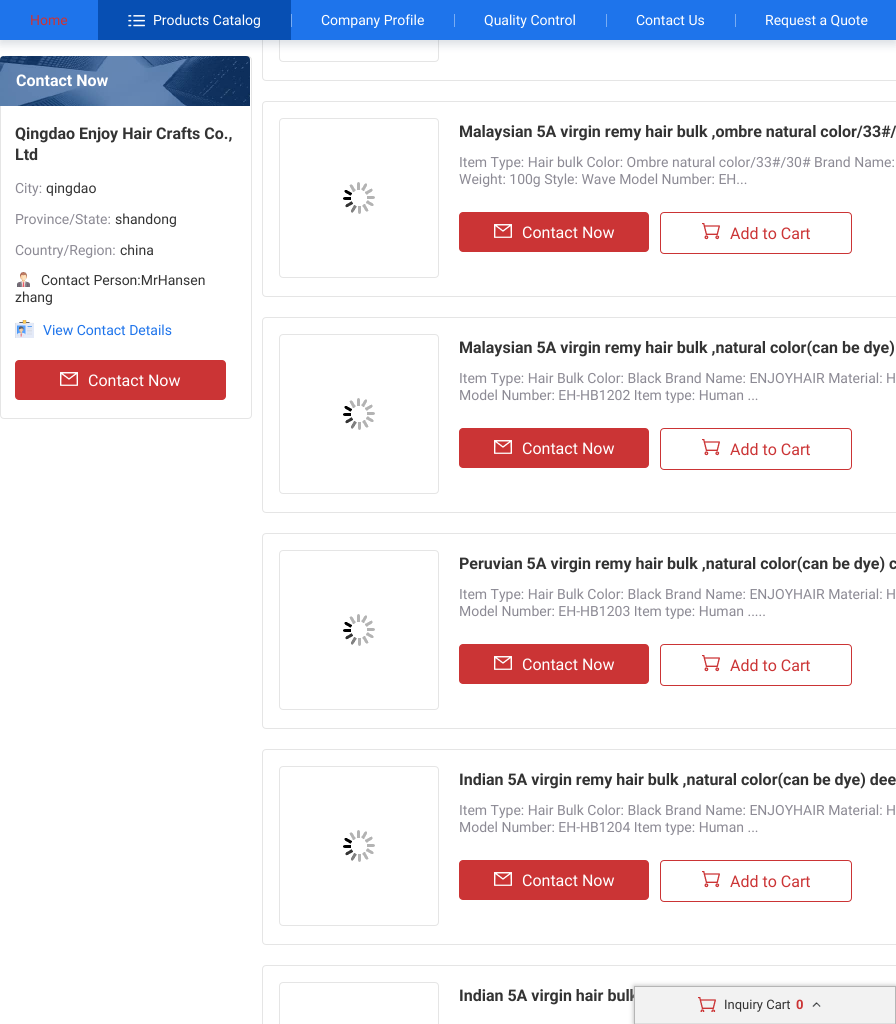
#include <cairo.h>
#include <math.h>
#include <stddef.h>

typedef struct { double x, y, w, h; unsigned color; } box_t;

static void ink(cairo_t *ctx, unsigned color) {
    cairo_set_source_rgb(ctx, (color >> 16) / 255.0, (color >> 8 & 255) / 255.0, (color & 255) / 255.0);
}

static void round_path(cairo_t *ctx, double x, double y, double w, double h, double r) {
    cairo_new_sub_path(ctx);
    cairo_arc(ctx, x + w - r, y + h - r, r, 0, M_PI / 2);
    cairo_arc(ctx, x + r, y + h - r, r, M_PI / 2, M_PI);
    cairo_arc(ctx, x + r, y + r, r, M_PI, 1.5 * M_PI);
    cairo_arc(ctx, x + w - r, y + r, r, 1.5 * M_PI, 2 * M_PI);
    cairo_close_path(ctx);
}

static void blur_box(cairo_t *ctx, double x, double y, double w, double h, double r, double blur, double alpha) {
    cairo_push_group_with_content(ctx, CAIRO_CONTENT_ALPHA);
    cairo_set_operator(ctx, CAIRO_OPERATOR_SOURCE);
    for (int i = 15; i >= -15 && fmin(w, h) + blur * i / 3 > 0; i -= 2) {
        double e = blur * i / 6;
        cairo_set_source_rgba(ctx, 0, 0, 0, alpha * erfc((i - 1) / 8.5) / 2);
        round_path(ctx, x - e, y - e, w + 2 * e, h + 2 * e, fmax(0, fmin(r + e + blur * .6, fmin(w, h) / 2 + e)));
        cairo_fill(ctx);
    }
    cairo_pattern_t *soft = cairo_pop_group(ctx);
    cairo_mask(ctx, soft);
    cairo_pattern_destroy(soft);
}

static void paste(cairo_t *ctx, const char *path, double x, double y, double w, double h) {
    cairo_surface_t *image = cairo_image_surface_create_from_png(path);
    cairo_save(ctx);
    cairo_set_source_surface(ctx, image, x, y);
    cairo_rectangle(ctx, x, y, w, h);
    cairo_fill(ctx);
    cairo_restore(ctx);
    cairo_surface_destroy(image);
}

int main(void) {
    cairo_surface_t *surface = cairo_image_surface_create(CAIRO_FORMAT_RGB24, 896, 1024);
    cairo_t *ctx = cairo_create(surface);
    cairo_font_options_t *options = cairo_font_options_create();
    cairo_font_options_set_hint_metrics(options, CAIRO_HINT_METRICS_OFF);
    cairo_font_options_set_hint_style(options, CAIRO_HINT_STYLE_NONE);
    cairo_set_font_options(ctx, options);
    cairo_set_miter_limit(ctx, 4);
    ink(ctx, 0xFFFFFF);
    cairo_paint(ctx);
    round_path(ctx, 0.5, 56.5, 251, 362, 3.5);
    ink(ctx, 0xE5E5E5);
    cairo_set_line_width(ctx, 1);
    cairo_stroke(ctx);
    paste(ctx, "media/2.png", 0, 56, 250, 50);
    round_path(ctx, 262.5, -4.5, 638, 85, 3.5);
    cairo_stroke(ctx);
    round_path(ctx, 279.5, -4.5, 159, 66, 3.5);
    cairo_stroke(ctx);
    ink(ctx, 0x041E42);
    blur_box(ctx, 0, 4, 896, 40, 0, 5, 0.16);
    ink(ctx, 0x1E74EB);
    cairo_rectangle(ctx, 0, 0, 896, 40);
    cairo_fill(ctx);
    cairo_select_font_face(ctx, "Roboto", CAIRO_FONT_SLANT_NORMAL, CAIRO_FONT_WEIGHT_NORMAL);
    cairo_set_font_size(ctx, 14);
    ink(ctx, 0xCB3435);
    cairo_move_to(ctx, 30, 25);
    cairo_show_text(ctx, "Home");
    ink(ctx, 0x074FB3);
    cairo_rectangle(ctx, 98, 0, 193, 40);
    cairo_fill(ctx);
    paste(ctx, "media/1.png", 128, 15, 17, 12);
    ink(ctx, 0xFFFFFF);
    cairo_move_to(ctx, 153, 25);
    cairo_show_text(ctx, "Products Catalog");
    ink(ctx, 0x78ACF3);
    cairo_rectangle(ctx, 291, 14, 1, 13);
    cairo_fill(ctx);
    ink(ctx, 0xFFFFFF);
    cairo_move_to(ctx, 321, 25);
    cairo_show_text(ctx, "Company Profile");
    ink(ctx, 0x78ACF3);
    cairo_rectangle(ctx, 454, 14, 1, 13);
    cairo_fill(ctx);
    ink(ctx, 0xFFFFFF);
    cairo_move_to(ctx, 484, 25);
    cairo_show_text(ctx, "Quality Control");
    ink(ctx, 0x78ACF3);
    cairo_rectangle(ctx, 606, 14, 1, 13);
    cairo_fill(ctx);
    ink(ctx, 0xFFFFFF);
    cairo_move_to(ctx, 636, 25);
    cairo_show_text(ctx, "Contact Us");
    ink(ctx, 0x78ACF3);
    cairo_rectangle(ctx, 735, 14, 1, 13);
    cairo_fill(ctx);
    ink(ctx, 0xFFFFFF);
    cairo_move_to(ctx, 765, 25);
    cairo_show_text(ctx, "Request a Quote");
    cairo_select_font_face(ctx, "Roboto", CAIRO_FONT_SLANT_NORMAL, CAIRO_FONT_WEIGHT_BOLD);
    cairo_set_font_size(ctx, 16);
    cairo_move_to(ctx, 16, 86);
    cairo_show_text(ctx, "Contact Now");
    ink(ctx, 0x333333);
    cairo_move_to(ctx, 15, 139);
    cairo_show_text(ctx, "Qingdao Enjoy Hair Crafts Co.,");
    cairo_move_to(ctx, 15, 160);
    cairo_show_text(ctx, "Ltd");
    cairo_select_font_face(ctx, "Roboto", CAIRO_FONT_SLANT_NORMAL, CAIRO_FONT_WEIGHT_NORMAL);
    cairo_set_font_size(ctx, 14);
    ink(ctx, 0x8C8A94);
    cairo_move_to(ctx, 15, 193);
    cairo_show_text(ctx, "City:");
    ink(ctx, 0x333333);
    cairo_move_to(ctx, 46, 193);
    cairo_show_text(ctx, "qingdao");
    ink(ctx, 0x8C8A94);
    cairo_move_to(ctx, 15, 224);
    cairo_show_text(ctx, "Province/State:");
    ink(ctx, 0x333333);
    cairo_move_to(ctx, 115, 224);
    cairo_show_text(ctx, "shandong");
    ink(ctx, 0x8C8A94);
    cairo_move_to(ctx, 15, 255);
    cairo_show_text(ctx, "Country/Region:");
    ink(ctx, 0x333333);
    cairo_move_to(ctx, 120, 255);
    cairo_show_text(ctx, "china");
    paste(ctx, "media/3.png", 17, 272, 13, 15);
    cairo_move_to(ctx, 41, 285);
    cairo_show_text(ctx, "Contact Person:MrHansen");
    cairo_move_to(ctx, 15, 302);
    cairo_show_text(ctx, "zhang");
    paste(ctx, "media/4.png", 15, 320, 19, 18);
    ink(ctx, 0x1E74EB);
    cairo_move_to(ctx, 43, 335);
    cairo_show_text(ctx, "View Contact Details");
    ink(ctx, 0xCB3435);
    round_path(ctx, 15, 360, 211, 40, 4);
    cairo_fill(ctx);
    paste(ctx, "media/5.png", 60, 372, 18, 14);
    cairo_set_font_size(ctx, 16);
    ink(ctx, 0xFFFFFF);
    cairo_move_to(ctx, 88, 386);
    cairo_show_text(ctx, "Contact Now");
    round_path(ctx, 262.5, 101.5, 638, 195, 3.5);
    ink(ctx, 0xE5E5E5);
    cairo_stroke(ctx);
    round_path(ctx, 279.5, 118.5, 159, 159, 3.5);
    cairo_stroke(ctx);
    paste(ctx, "media/6.png", 343, 182, 32, 32);
    cairo_select_font_face(ctx, "Roboto", CAIRO_FONT_SLANT_NORMAL, CAIRO_FONT_WEIGHT_BOLD);
    ink(ctx, 0x333333);
    cairo_move_to(ctx, 459, 137);
    cairo_show_text(ctx, "Malaysian 5A virgin remy hair bulk ,ombre natural color/33#/");
    cairo_select_font_face(ctx, "Roboto", CAIRO_FONT_SLANT_NORMAL, CAIRO_FONT_WEIGHT_NORMAL);
    cairo_set_font_size(ctx, 14);
    ink(ctx, 0x8C8A94);
    cairo_move_to(ctx, 459, 167);
    cairo_show_text(ctx, "Item Type: Hair bulk Color: Ombre natural color/33#/30# Brand Name:");
    cairo_move_to(ctx, 459, 184);
    cairo_show_text(ctx, "Weight: 100g Style: Wave Model Number: EH...");
    ink(ctx, 0xCB3435);
    round_path(ctx, 459, 212, 190, 40, 4);
    cairo_fill(ctx);
    paste(ctx, "media/5.png", 494, 224, 18, 14);
    cairo_set_font_size(ctx, 16);
    ink(ctx, 0xFFFFFF);
    cairo_move_to(ctx, 522, 238);
    cairo_show_text(ctx, "Contact Now");
    round_path(ctx, 660.5, 212.5, 191, 41, 3.5);
    ink(ctx, 0xCB3435);
    cairo_stroke(ctx);
    paste(ctx, "media/7.png", 702, 223, 18, 17);
    cairo_move_to(ctx, 730, 239);
    cairo_show_text(ctx, "Add to Cart");
    round_path(ctx, 262.5, 317.5, 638, 195, 3.5);
    ink(ctx, 0xE5E5E5);
    cairo_stroke(ctx);
    round_path(ctx, 279.5, 334.5, 159, 159, 3.5);
    cairo_stroke(ctx);
    paste(ctx, "media/6.png", 343, 398, 32, 32);
    cairo_select_font_face(ctx, "Roboto", CAIRO_FONT_SLANT_NORMAL, CAIRO_FONT_WEIGHT_BOLD);
    ink(ctx, 0x333333);
    cairo_move_to(ctx, 459, 353);
    cairo_show_text(ctx, "Malaysian 5A virgin remy hair bulk ,natural color(can be dye)");
    cairo_select_font_face(ctx, "Roboto", CAIRO_FONT_SLANT_NORMAL, CAIRO_FONT_WEIGHT_NORMAL);
    cairo_set_font_size(ctx, 14);
    ink(ctx, 0x8C8A94);
    cairo_move_to(ctx, 459, 383);
    cairo_show_text(ctx, "Item Type: Hair Bulk Color: Black Brand Name: ENJOYHAIR Material: H");
    cairo_move_to(ctx, 459, 400);
    cairo_show_text(ctx, "Model Number: EH-HB1202 Item type: Human ...");
    ink(ctx, 0xCB3435);
    round_path(ctx, 459, 428, 190, 40, 4);
    cairo_fill(ctx);
    paste(ctx, "media/5.png", 494, 440, 18, 14);
    cairo_set_font_size(ctx, 16);
    ink(ctx, 0xFFFFFF);
    cairo_move_to(ctx, 522, 454);
    cairo_show_text(ctx, "Contact Now");
    round_path(ctx, 660.5, 428.5, 191, 41, 3.5);
    ink(ctx, 0xCB3435);
    cairo_stroke(ctx);
    paste(ctx, "media/7.png", 702, 439, 18, 17);
    cairo_move_to(ctx, 730, 455);
    cairo_show_text(ctx, "Add to Cart");
    round_path(ctx, 262.5, 533.5, 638, 195, 3.5);
    ink(ctx, 0xE5E5E5);
    cairo_stroke(ctx);
    round_path(ctx, 279.5, 550.5, 159, 159, 3.5);
    cairo_stroke(ctx);
    paste(ctx, "media/6.png", 343, 614, 32, 32);
    cairo_select_font_face(ctx, "Roboto", CAIRO_FONT_SLANT_NORMAL, CAIRO_FONT_WEIGHT_BOLD);
    ink(ctx, 0x333333);
    cairo_move_to(ctx, 459, 569);
    cairo_show_text(ctx, "Peruvian 5A virgin remy hair bulk ,natural color(can be dye) c");
    cairo_select_font_face(ctx, "Roboto", CAIRO_FONT_SLANT_NORMAL, CAIRO_FONT_WEIGHT_NORMAL);
    cairo_set_font_size(ctx, 14);
    ink(ctx, 0x8C8A94);
    cairo_move_to(ctx, 459, 599);
    cairo_show_text(ctx, "Item Type: Hair Bulk Color: Black Brand Name: ENJOYHAIR Material: H");
    cairo_move_to(ctx, 459, 616);
    cairo_show_text(ctx, "Model Number: EH-HB1203 Item type: Human .....");
    ink(ctx, 0xCB3435);
    round_path(ctx, 459, 644, 190, 40, 4);
    cairo_fill(ctx);
    paste(ctx, "media/5.png", 494, 656, 18, 14);
    cairo_set_font_size(ctx, 16);
    ink(ctx, 0xFFFFFF);
    cairo_move_to(ctx, 522, 670);
    cairo_show_text(ctx, "Contact Now");
    round_path(ctx, 660.5, 644.5, 191, 41, 3.5);
    ink(ctx, 0xCB3435);
    cairo_stroke(ctx);
    paste(ctx, "media/7.png", 702, 655, 18, 17);
    cairo_move_to(ctx, 730, 671);
    cairo_show_text(ctx, "Add to Cart");
    round_path(ctx, 262.5, 749.5, 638, 195, 3.5);
    ink(ctx, 0xE5E5E5);
    cairo_stroke(ctx);
    round_path(ctx, 279.5, 766.5, 159, 159, 3.5);
    cairo_stroke(ctx);
    paste(ctx, "media/6.png", 343, 830, 32, 32);
    cairo_select_font_face(ctx, "Roboto", CAIRO_FONT_SLANT_NORMAL, CAIRO_FONT_WEIGHT_BOLD);
    ink(ctx, 0x333333);
    cairo_move_to(ctx, 459, 785);
    cairo_show_text(ctx, "Indian 5A virgin remy hair bulk ,natural color(can be dye) dee");
    cairo_select_font_face(ctx, "Roboto", CAIRO_FONT_SLANT_NORMAL, CAIRO_FONT_WEIGHT_NORMAL);
    cairo_set_font_size(ctx, 14);
    ink(ctx, 0x8C8A94);
    cairo_move_to(ctx, 459, 815);
    cairo_show_text(ctx, "Item Type: Hair Bulk Color: Black Brand Name: ENJOYHAIR Material: H");
    cairo_move_to(ctx, 459, 832);
    cairo_show_text(ctx, "Model Number: EH-HB1204 Item type: Human ...");
    ink(ctx, 0xCB3435);
    round_path(ctx, 459, 860, 190, 40, 4);
    cairo_fill(ctx);
    paste(ctx, "media/5.png", 494, 872, 18, 14);
    cairo_set_font_size(ctx, 16);
    ink(ctx, 0xFFFFFF);
    cairo_move_to(ctx, 522, 886);
    cairo_show_text(ctx, "Contact Now");
    round_path(ctx, 660.5, 860.5, 191, 41, 3.5);
    ink(ctx, 0xCB3435);
    cairo_stroke(ctx);
    paste(ctx, "media/7.png", 702, 871, 18, 17);
    cairo_move_to(ctx, 730, 887);
    cairo_show_text(ctx, "Add to Cart");
    round_path(ctx, 262.5, 965.5, 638, 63, 3.5);
    ink(ctx, 0xE5E5E5);
    cairo_stroke(ctx);
    round_path(ctx, 279.5, 982.5, 159, 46, 3.5);
    cairo_stroke(ctx);
    cairo_select_font_face(ctx, "Roboto", CAIRO_FONT_SLANT_NORMAL, CAIRO_FONT_WEIGHT_BOLD);
    ink(ctx, 0x333333);
    cairo_move_to(ctx, 459, 1001);
    cairo_show_text(ctx, "Indian 5A virgin hair bulk");
    ink(ctx, 0xB5B5B5);
    blur_box(ctx, 634, 986, 262, 38, 0, 2.5, 1);
    {
        static const box_t items[] = {
            {634, 986, 262, 1, 0xB5B5B5},
            {895, 986, 1, 38, 0xB5B5B5},
            {634, 986, 1, 38, 0xB5B5B5},
            {635, 987, 260, 36, 0xF2F2F2},
            {635, 1023, 260, 1, 0xDEDEDE},
        };
        for (size_t i = 0; i < sizeof items / sizeof *items; i++) {
            ink(ctx, items[i].color);
            cairo_rectangle(ctx, items[i].x, items[i].y, items[i].w, items[i].h);
            cairo_fill(ctx);
        }
    }
    paste(ctx, "media/8.png", 698, 997, 18, 15);
    cairo_select_font_face(ctx, "Roboto", CAIRO_FONT_SLANT_NORMAL, CAIRO_FONT_WEIGHT_NORMAL);
    cairo_set_font_size(ctx, 13);
    ink(ctx, 0x333333);
    cairo_move_to(ctx, 724, 1009);
    cairo_show_text(ctx, "Inquiry Cart");
    cairo_select_font_face(ctx, "Roboto", CAIRO_FONT_SLANT_NORMAL, CAIRO_FONT_WEIGHT_BOLD);
    ink(ctx, 0xCB3435);
    cairo_move_to(ctx, 796, 1009);
    cairo_show_text(ctx, "0");
    paste(ctx, "media/9.png", 812, 1002, 9, 5);
    cairo_surface_write_to_png(surface, "image.png");
    cairo_font_options_destroy(options);
    cairo_destroy(ctx);
    cairo_surface_destroy(surface);
    return 0;
}
